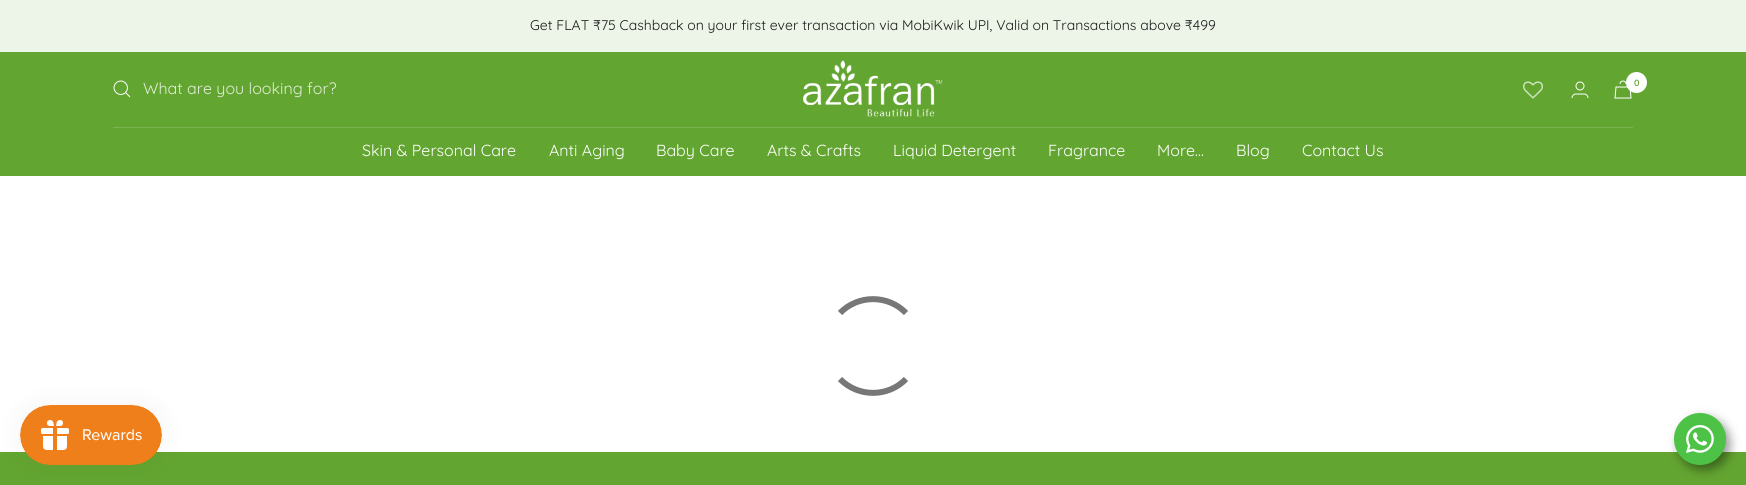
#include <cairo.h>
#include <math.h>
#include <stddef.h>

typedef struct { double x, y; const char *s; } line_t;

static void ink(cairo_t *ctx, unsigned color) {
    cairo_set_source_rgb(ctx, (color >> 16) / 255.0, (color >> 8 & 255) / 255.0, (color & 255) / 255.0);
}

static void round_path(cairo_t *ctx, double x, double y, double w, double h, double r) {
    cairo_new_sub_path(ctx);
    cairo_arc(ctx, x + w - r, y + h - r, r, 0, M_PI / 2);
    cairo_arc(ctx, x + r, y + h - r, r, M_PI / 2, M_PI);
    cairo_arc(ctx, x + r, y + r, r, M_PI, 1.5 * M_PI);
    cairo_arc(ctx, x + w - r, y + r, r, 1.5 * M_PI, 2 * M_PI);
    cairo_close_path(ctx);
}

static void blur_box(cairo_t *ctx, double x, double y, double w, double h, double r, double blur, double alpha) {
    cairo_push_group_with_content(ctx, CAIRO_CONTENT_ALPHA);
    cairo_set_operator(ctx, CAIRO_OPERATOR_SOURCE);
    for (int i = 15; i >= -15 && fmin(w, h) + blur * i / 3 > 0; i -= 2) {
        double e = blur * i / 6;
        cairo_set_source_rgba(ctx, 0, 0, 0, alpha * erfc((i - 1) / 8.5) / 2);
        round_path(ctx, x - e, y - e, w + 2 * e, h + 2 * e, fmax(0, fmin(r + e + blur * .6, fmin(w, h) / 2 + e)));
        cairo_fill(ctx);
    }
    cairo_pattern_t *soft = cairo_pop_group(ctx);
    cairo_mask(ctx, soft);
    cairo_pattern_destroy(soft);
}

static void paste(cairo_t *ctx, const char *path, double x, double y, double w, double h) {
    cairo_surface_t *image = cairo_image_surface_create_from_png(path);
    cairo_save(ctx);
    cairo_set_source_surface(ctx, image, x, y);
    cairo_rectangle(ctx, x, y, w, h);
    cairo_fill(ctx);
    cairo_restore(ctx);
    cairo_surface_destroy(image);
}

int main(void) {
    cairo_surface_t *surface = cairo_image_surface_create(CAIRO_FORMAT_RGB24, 1746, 485);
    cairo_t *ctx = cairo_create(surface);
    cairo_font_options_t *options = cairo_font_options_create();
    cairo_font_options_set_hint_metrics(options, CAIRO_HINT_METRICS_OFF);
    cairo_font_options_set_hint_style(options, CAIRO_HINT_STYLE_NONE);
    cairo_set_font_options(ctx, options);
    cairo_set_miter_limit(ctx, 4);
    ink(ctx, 0xFFFFFF);
    cairo_paint(ctx);
    ink(ctx, 0xEDF4E8);
    cairo_rectangle(ctx, 0, 0, 1746, 52);
    cairo_fill(ctx);
    cairo_select_font_face(ctx, "Quicksand", CAIRO_FONT_SLANT_NORMAL, CAIRO_FONT_WEIGHT_NORMAL);
    cairo_set_font_size(ctx, 14);
    ink(ctx, 0x1A1A1A);
    cairo_move_to(ctx, 530, 30);
    cairo_show_text(ctx, "Get FLAT ₹75 Cashback on your first ever transaction via MobiKwik UPI, Valid on Transactions above ₹499");
    ink(ctx, 0x63A531);
    cairo_rectangle(ctx, 0, 52, 1746, 124);
    cairo_fill(ctx);
    cairo_new_path(ctx);
    cairo_move_to(ctx, 125.5, 92.5);
    cairo_curve_to(ctx, 131.5, 86, 122.5, 77, 116, 83);
    cairo_curve_to(ctx, 110, 89.5, 119, 98.5, 125.5, 92.5);
    cairo_close_path(ctx);
    cairo_move_to(ctx, 125.5, 92.5);
    cairo_line_to(ctx, 130, 97);
    ink(ctx, 0xFFFFFF);
    cairo_set_line_width(ctx, 1);
    cairo_stroke(ctx);
    cairo_set_font_size(ctx, 16);
    ink(ctx, 0xE0EDD6);
    cairo_move_to(ctx, 143, 94);
    cairo_show_text(ctx, "What are you looking for?");
    paste(ctx, "media/1.png", 803, 60, 140, 57);
    paste(ctx, "media/2.png", 1523, 81, 20, 18);
    paste(ctx, "media/3.png", 1571, 81, 18, 17);
    paste(ctx, "media/4.png", 1614, 80, 18, 19);
    ink(ctx, 0xFFFFFF);
    cairo_arc(ctx, 1636.5, 82.5, 10.5, 0, 2 * M_PI);
    cairo_fill(ctx);
    cairo_select_font_face(ctx, "Quicksand SemiBold", CAIRO_FONT_SLANT_NORMAL, CAIRO_FONT_WEIGHT_NORMAL);
    cairo_set_font_size(ctx, 9);
    ink(ctx, 0x63A531);
    cairo_move_to(ctx, 1634, 86);
    cairo_show_text(ctx, "0");
    ink(ctx, 0x7AB350);
    cairo_rectangle(ctx, 113, 127, 1520, 1);
    cairo_fill(ctx);
    cairo_select_font_face(ctx, "Quicksand", CAIRO_FONT_SLANT_NORMAL, CAIRO_FONT_WEIGHT_NORMAL);
    cairo_set_font_size(ctx, 16);
    ink(ctx, 0xFFFFFF);
    {
        static const line_t items[] = {
            {362, 156, "Skin & Personal Care"},
            {549, 156, "Anti Aging"},
            {656, 156, "Baby Care"},
            {767, 156, "Arts & Crafts"},
            {893, 156, "Liquid Detergent"},
            {1048, 156, "Fragrance"},
            {1157, 156, "More..."},
            {1236, 156, "Blog"},
            {1302, 156, "Contact Us"},
        };
        for (size_t i = 0; i < sizeof items / sizeof *items; i++) {
            cairo_move_to(ctx, items[i].x, items[i].y);
            cairo_show_text(ctx, items[i].s);
        }
    }
    cairo_new_path(ctx);
    cairo_move_to(ctx, 840, 313);
    cairo_curve_to(ctx, 858, 294.5, 888, 294.5, 906, 313);
    ink(ctx, 0x777777);
    cairo_set_line_width(ctx, 6);
    cairo_stroke(ctx);
    cairo_new_path(ctx);
    cairo_move_to(ctx, 906, 379);
    cairo_curve_to(ctx, 888, 397.5, 858, 397.5, 840, 379);
    cairo_stroke(ctx);
    ink(ctx, 0x63A531);
    cairo_rectangle(ctx, 0, 452, 1746, 33);
    cairo_fill(ctx);
    ink(ctx, 0x000000);
    blur_box(ctx, 20, 405, 142, 60, 30, 12.5, 0.05);
    paste(ctx, "media/5.png", 20, 405, 142, 60);
    blur_box(ctx, 1678, 418, 52, 52, 26, 5, 0.4);
    ink(ctx, 0x4DC247);
    cairo_arc(ctx, 1700, 439, 26, 0, 2 * M_PI);
    cairo_fill(ctx);
    paste(ctx, "media/6.png", 1686, 425, 28, 28);
    cairo_surface_write_to_png(surface, "image.png");
    cairo_font_options_destroy(options);
    cairo_destroy(ctx);
    cairo_surface_destroy(surface);
    return 0;
}
